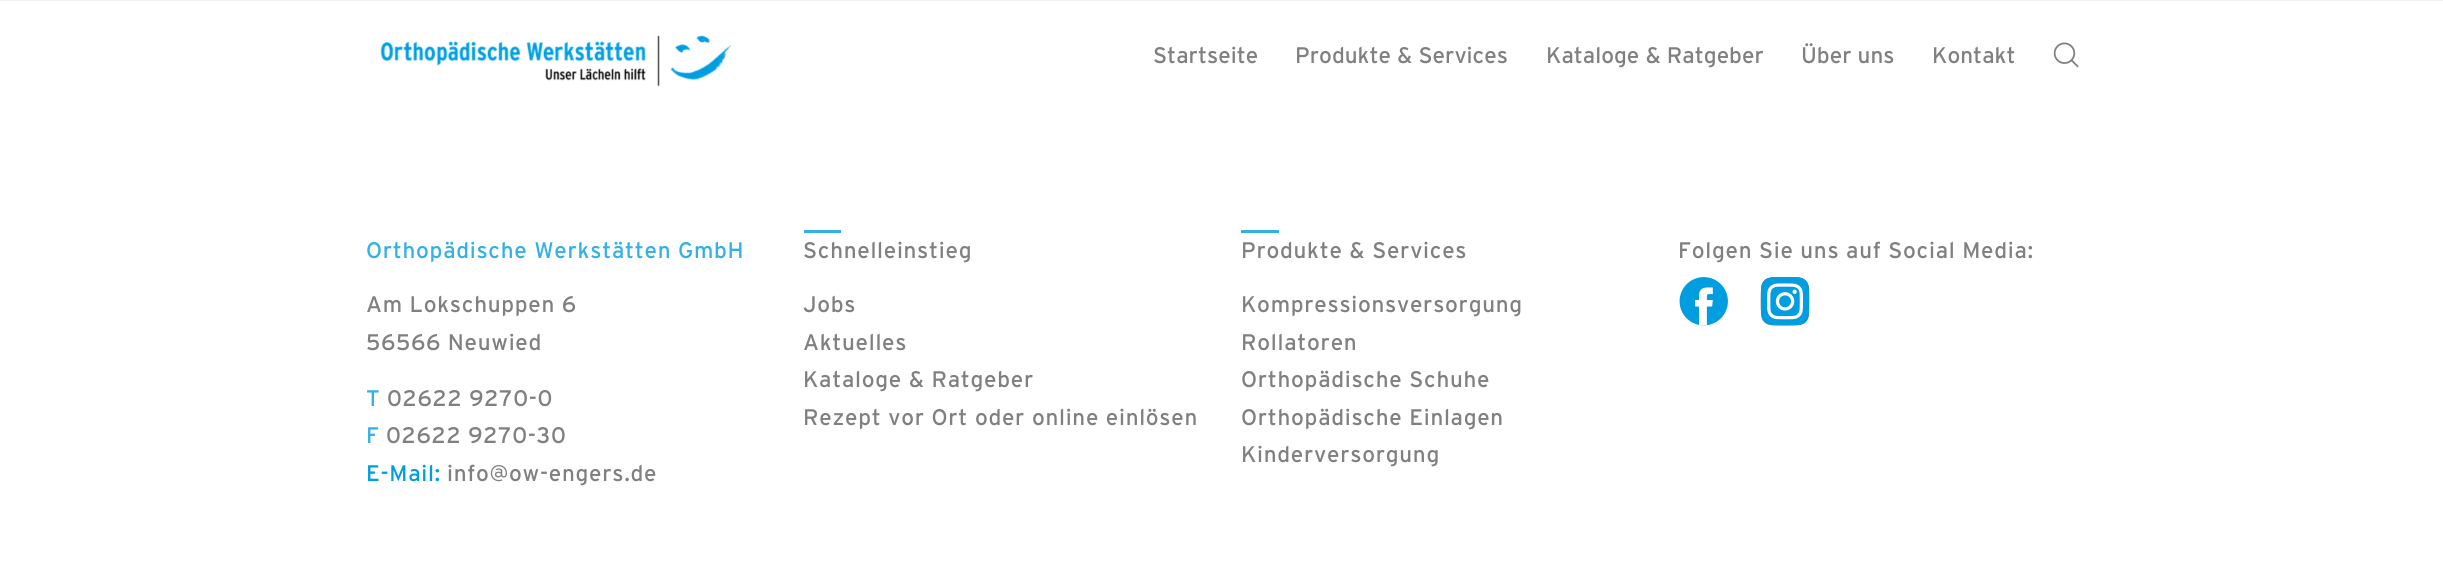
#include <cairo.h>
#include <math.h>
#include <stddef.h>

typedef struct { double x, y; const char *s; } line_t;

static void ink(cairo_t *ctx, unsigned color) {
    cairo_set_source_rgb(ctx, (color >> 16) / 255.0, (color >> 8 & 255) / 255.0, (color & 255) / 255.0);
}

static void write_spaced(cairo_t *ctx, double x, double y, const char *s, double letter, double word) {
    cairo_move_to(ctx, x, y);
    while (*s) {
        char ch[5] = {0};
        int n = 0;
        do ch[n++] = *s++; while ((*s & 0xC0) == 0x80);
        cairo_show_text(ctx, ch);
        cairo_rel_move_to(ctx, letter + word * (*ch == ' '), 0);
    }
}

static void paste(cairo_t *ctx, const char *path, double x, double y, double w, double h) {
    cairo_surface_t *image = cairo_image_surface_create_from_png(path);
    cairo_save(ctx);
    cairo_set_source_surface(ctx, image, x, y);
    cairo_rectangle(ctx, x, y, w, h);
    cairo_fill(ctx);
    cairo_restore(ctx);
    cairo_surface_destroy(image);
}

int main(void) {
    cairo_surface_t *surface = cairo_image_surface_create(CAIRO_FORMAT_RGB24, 2443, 588);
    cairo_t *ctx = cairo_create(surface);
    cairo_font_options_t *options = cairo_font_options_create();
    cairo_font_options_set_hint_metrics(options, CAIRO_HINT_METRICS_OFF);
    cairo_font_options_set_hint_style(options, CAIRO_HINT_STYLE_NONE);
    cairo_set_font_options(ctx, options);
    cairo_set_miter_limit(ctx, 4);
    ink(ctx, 0xFFFFFF);
    cairo_paint(ctx);
    ink(ctx, 0xF2F2F2);
    cairo_rectangle(ctx, 0, 0, 2443, 1);
    cairo_fill(ctx);
    paste(ctx, "media/1.png", 380, 35, 352, 52);
    cairo_select_font_face(ctx, "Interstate", CAIRO_FONT_SLANT_NORMAL, CAIRO_FONT_WEIGHT_NORMAL);
    cairo_set_font_size(ctx, 22.5);
    ink(ctx, 0x808080);
    {
        static const line_t items[] = {
            {1153, 63, "Startseite"},
            {1295, 63, "Produkte & Services"},
            {1546, 63, "Kataloge & Ratgeber"},
            {1801, 63, "Über uns"},
            {1932, 63, "Kontakt"},
        };
        for (size_t i = 0; i < sizeof items / sizeof *items; i++) {
            cairo_move_to(ctx, items[i].x, items[i].y);
            cairo_show_text(ctx, items[i].s);
        }
    }
    paste(ctx, "media/2.png", 2053, 42, 26, 26);
    ink(ctx, 0x33B1E6);
    write_spaced(ctx, 366, 258, "Orthopädische Werkstätten GmbH", 0.7, 0);
    ink(ctx, 0x808080);
    write_spaced(ctx, 366, 312, "Am Lokschuppen 6", 0.7, 0);
    write_spaced(ctx, 366, 350, "56566 Neuwied", 0.7, 0);
    ink(ctx, 0x33B1E6);
    write_spaced(ctx, 366, 406, "T", 0.7, 0);
    ink(ctx, 0x808080);
    write_spaced(ctx, 387, 406, "02622 9270-0", 0.7, 0);
    ink(ctx, 0x33B1E6);
    write_spaced(ctx, 366, 443, "F", 0.7, 0);
    ink(ctx, 0x808080);
    write_spaced(ctx, 386, 443, "02622 9270-30", 0.7, 0);
    ink(ctx, 0x009EE0);
    write_spaced(ctx, 366, 481, "E-Mail:", 0.7, 0);
    ink(ctx, 0x808080);
    write_spaced(ctx, 447, 481, "info@ow-engers.de", 0.7, 0);
    ink(ctx, 0x33B1E6);
    cairo_rectangle(ctx, 804, 230, 37, 3);
    cairo_fill(ctx);
    ink(ctx, 0x808080);
    {
        static const line_t items[] = {
            {803, 258, "Schnelleinstieg"},
            {803, 312, "Jobs"},
            {803, 350, "Aktuelles"},
            {803, 387, "Kataloge & Ratgeber"},
            {803, 425, "Rezept vor Ort oder online einlösen"},
        };
        for (size_t i = 0; i < sizeof items / sizeof *items; i++) {
            write_spaced(ctx, items[i].x, items[i].y, items[i].s, 0.7, 0);
        }
    }
    ink(ctx, 0x33B1E6);
    cairo_rectangle(ctx, 1241, 230, 38, 3);
    cairo_fill(ctx);
    ink(ctx, 0x808080);
    {
        static const line_t items[] = {
            {1241, 258, "Produkte & Services"},
            {1241, 312, "Kompressionsversorgung"},
            {1241, 350, "Rollatoren"},
            {1241, 387, "Orthopädische Schuhe"},
            {1241, 425, "Orthopädische Einlagen"},
            {1241, 462, "Kinderversorgung"},
            {1678, 258, "Folgen Sie uns auf Social Media:"},
        };
        for (size_t i = 0; i < sizeof items / sizeof *items; i++) {
            write_spaced(ctx, items[i].x, items[i].y, items[i].s, 0.7, 0);
        }
    }
    paste(ctx, "media/3.png", 1679, 277, 49, 49);
    paste(ctx, "media/4.png", 1760, 277, 50, 49);
    cairo_surface_write_to_png(surface, "image.png");
    cairo_font_options_destroy(options);
    cairo_destroy(ctx);
    cairo_surface_destroy(surface);
    return 0;
}
